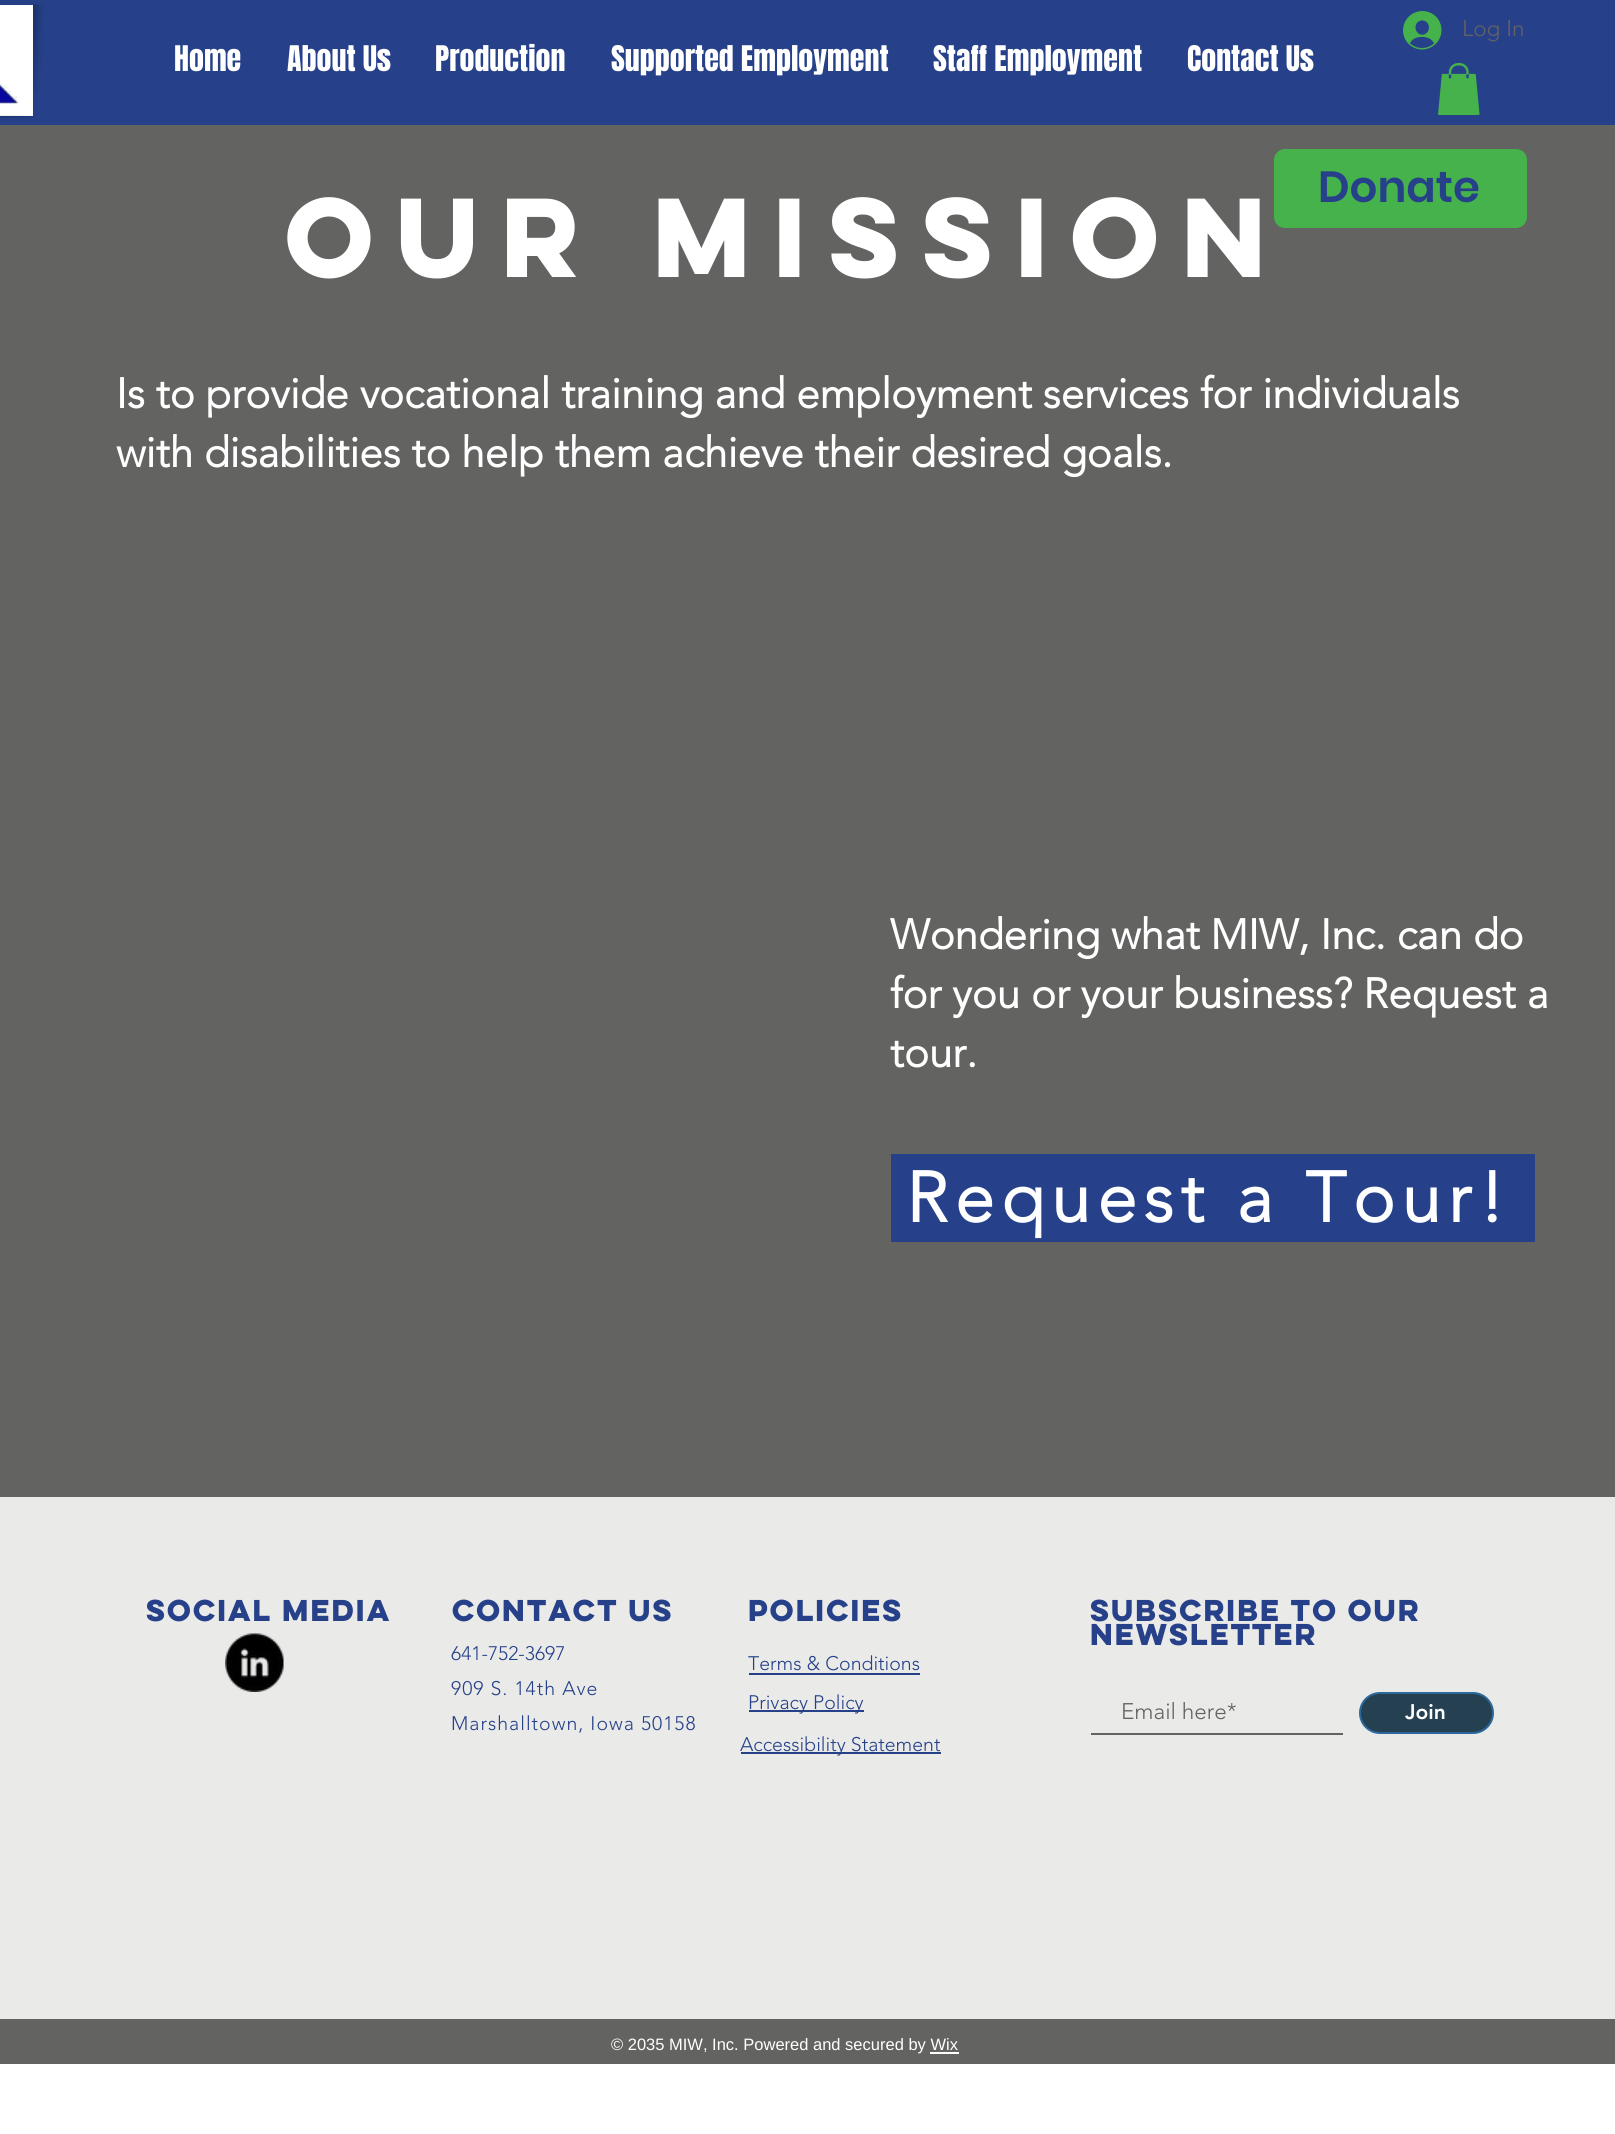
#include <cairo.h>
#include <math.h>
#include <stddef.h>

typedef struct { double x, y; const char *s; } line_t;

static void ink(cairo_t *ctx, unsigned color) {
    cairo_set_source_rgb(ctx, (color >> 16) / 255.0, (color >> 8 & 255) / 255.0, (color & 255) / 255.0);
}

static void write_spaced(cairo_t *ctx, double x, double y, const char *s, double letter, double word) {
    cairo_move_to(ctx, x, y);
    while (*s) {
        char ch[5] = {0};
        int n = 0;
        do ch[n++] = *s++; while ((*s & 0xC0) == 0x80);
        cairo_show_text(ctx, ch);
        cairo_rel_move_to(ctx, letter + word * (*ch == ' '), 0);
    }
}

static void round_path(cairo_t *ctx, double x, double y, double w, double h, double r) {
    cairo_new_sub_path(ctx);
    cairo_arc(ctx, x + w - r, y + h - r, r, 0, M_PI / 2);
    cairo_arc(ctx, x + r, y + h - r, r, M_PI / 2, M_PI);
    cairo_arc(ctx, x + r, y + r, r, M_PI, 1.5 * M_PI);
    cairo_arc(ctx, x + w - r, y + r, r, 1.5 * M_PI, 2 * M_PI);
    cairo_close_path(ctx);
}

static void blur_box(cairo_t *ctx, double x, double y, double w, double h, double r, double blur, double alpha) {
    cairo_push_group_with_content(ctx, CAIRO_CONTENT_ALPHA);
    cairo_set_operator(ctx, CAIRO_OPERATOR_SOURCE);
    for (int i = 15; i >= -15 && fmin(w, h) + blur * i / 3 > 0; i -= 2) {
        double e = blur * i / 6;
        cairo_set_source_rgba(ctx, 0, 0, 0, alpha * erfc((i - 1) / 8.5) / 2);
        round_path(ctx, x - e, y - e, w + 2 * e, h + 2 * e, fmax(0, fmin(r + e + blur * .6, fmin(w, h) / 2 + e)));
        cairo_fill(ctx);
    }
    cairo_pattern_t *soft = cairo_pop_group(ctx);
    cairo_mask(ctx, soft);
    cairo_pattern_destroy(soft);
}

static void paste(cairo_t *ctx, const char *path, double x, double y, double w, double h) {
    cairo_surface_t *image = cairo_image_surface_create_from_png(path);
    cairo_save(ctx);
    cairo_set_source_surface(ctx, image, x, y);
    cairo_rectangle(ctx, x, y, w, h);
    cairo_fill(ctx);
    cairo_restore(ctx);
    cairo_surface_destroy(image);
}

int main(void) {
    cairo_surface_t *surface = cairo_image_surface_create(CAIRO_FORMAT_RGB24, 1615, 2134);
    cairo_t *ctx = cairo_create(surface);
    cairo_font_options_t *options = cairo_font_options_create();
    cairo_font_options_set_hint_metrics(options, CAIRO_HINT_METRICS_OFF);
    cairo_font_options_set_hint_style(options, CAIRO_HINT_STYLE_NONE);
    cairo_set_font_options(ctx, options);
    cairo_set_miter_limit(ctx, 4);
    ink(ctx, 0xFFFFFF);
    cairo_paint(ctx);
    ink(ctx, 0x26418A);
    cairo_rectangle(ctx, 0, 0, 1615, 125);
    cairo_fill(ctx);
    ink(ctx, 0x636362);
    cairo_rectangle(ctx, 0, 125, 1615, 1372);
    cairo_fill(ctx);
    ink(ctx, 0x000000);
    blur_box(ctx, -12, 5, 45, 111, 0, 4, 0.1);
    ink(ctx, 0xFFFFFF);
    cairo_rectangle(ctx, 0, 5, 33, 111);
    cairo_fill(ctx);
    paste(ctx, "media/1.png", 0, 81, 19, 23);
    paste(ctx, "media/2.png", 0, 115, 33, 3);
    paste(ctx, "media/3.png", 33, 4, 11, 89);
    paste(ctx, "media/4.png", 1403, 11, 39, 39);
    cairo_select_font_face(ctx, "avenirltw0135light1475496 Light", CAIRO_FONT_SLANT_NORMAL, CAIRO_FONT_WEIGHT_NORMAL);
    cairo_set_font_size(ctx, 22.5);
    ink(ctx, 0x636362);
    cairo_move_to(ctx, 1462, 36);
    cairo_show_text(ctx, "Log In");
    cairo_select_font_face(ctx, "Anton", CAIRO_FONT_SLANT_NORMAL, CAIRO_FONT_WEIGHT_NORMAL);
    cairo_set_font_size(ctx, 30);
    ink(ctx, 0xFFFFFF);
    {
        static const line_t items[] = {
            {174, 71, "Home"},
            {287, 71, "About Us"},
            {435, 71, "Production"},
            {611, 71, "Supported Employment"},
            {933, 71, "Staff Employment"},
            {1187, 71, "Contact Us"},
        };
        for (size_t i = 0; i < sizeof items / sizeof *items; i++) {
            cairo_move_to(ctx, items[i].x, items[i].y);
            cairo_show_text(ctx, items[i].s);
        }
    }
    paste(ctx, "media/5.png", 1438, 63, 42, 52);
    ink(ctx, 0x45B24B);
    round_path(ctx, 1274, 149, 253, 79, 11);
    cairo_fill(ctx);
    cairo_select_font_face(ctx, "Poppins SemiBold", CAIRO_FONT_SLANT_NORMAL, CAIRO_FONT_WEIGHT_NORMAL);
    cairo_set_font_size(ctx, 43.5);
    ink(ctx, 0x26418A);
    cairo_move_to(ctx, 1318, 202);
    cairo_show_text(ctx, "Donate");
    cairo_select_font_face(ctx, "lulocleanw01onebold", CAIRO_FONT_SLANT_NORMAL, CAIRO_FONT_WEIGHT_BOLD);
    cairo_set_font_size(ctx, 100.5);
    ink(ctx, 0xFFFFFF);
    cairo_move_to(ctx, 285, 277);
    cairo_show_text(ctx, "Our MISSION");
    cairo_select_font_face(ctx, "avenirltw0135light1475496", CAIRO_FONT_SLANT_NORMAL, CAIRO_FONT_WEIGHT_BOLD);
    cairo_set_font_size(ctx, 42);
    {
        static const line_t items[] = {
            {116, 408, "Is to provide vocational training and employment services for individuals"},
            {116, 467, "with disabilities to help them achieve their desired goals."},
            {890, 949, "Wondering what MIW, Inc. can do"},
            {890, 1008, "for you or your business? Request a"},
            {890, 1067, "tour."},
        };
        for (size_t i = 0; i < sizeof items / sizeof *items; i++) {
            cairo_move_to(ctx, items[i].x, items[i].y);
            cairo_show_text(ctx, items[i].s);
        }
    }
    ink(ctx, 0x26418A);
    cairo_rectangle(ctx, 891, 1154, 644, 88);
    cairo_fill(ctx);
    cairo_set_font_size(ctx, 70.5);
    ink(ctx, 0xFFFFFF);
    write_spaced(ctx, 906, 1222, "Request a Tour!", 7, 0);
    ink(ctx, 0xEAEAE8);
    cairo_rectangle(ctx, 0, 1497, 1615, 522);
    cairo_fill(ctx);
    cairo_select_font_face(ctx, "lulocleanw01onebold", CAIRO_FONT_SLANT_NORMAL, CAIRO_FONT_WEIGHT_BOLD);
    cairo_set_font_size(ctx, 27);
    ink(ctx, 0x26418A);
    {
        static const line_t items[] = {
            {146, 1621, "Social Media"},
            {452, 1621, "Contact Us"},
            {748, 1621, "pOLICIES"},
            {1090, 1621, "SUBSCRIBE to our"},
            {1090, 1645, "newsletter"},
        };
        for (size_t i = 0; i < sizeof items / sizeof *items; i++) {
            write_spaced(ctx, items[i].x, items[i].y, items[i].s, -4, 0);
        }
    }
    ink(ctx, 0x636362);
    cairo_rectangle(ctx, 1091, 1733, 252, 2);
    cairo_fill(ctx);
    cairo_select_font_face(ctx, "avenirltw0135light1475496 Light", CAIRO_FONT_SLANT_NORMAL, CAIRO_FONT_WEIGHT_NORMAL);
    cairo_set_font_size(ctx, 22.5);
    cairo_move_to(ctx, 1121, 1719);
    cairo_show_text(ctx, "Email here*");
    ink(ctx, 0x254151);
    round_path(ctx, 1360, 1693, 133, 40, 20);
    cairo_fill_preserve(ctx);
    ink(ctx, 0x2B689C);
    cairo_stroke(ctx);
    cairo_select_font_face(ctx, "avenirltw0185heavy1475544 Black", CAIRO_FONT_SLANT_NORMAL, CAIRO_FONT_WEIGHT_NORMAL);
    cairo_set_font_size(ctx, 21);
    ink(ctx, 0xFFFFFF);
    cairo_move_to(ctx, 1405, 1719);
    cairo_show_text(ctx, "Join");
    paste(ctx, "media/6.png", 225, 1633, 59, 59);
    cairo_select_font_face(ctx, "avenirltw0135light1475496 Light", CAIRO_FONT_SLANT_NORMAL, CAIRO_FONT_WEIGHT_NORMAL);
    cairo_set_font_size(ctx, 19.5);
    ink(ctx, 0x26418A);
    cairo_move_to(ctx, 451, 1660);
    cairo_show_text(ctx, "641-752-3697");
    write_spaced(ctx, 451, 1695, "909 S. 14th Ave", 1, 0);
    write_spaced(ctx, 451, 1730, "Marshalltown, Iowa 50158", 1, 0);
    cairo_move_to(ctx, 748, 1670);
    cairo_show_text(ctx, "Terms & Conditions");
    cairo_rectangle(ctx, 749, 1673, 171, 2);
    cairo_fill(ctx);
    cairo_rectangle(ctx, 749, 1710, 115, 2);
    cairo_fill(ctx);
    cairo_move_to(ctx, 748, 1709);
    cairo_show_text(ctx, "Privacy Policy");
    cairo_rectangle(ctx, 741, 1752, 200, 2);
    cairo_fill(ctx);
    cairo_move_to(ctx, 740, 1751);
    cairo_show_text(ctx, "Accessibility Statement");
    ink(ctx, 0x636362);
    cairo_rectangle(ctx, 0, 2019, 1615, 45);
    cairo_fill(ctx);
    cairo_select_font_face(ctx, "Liberation Sans", CAIRO_FONT_SLANT_NORMAL, CAIRO_FONT_WEIGHT_NORMAL);
    cairo_set_font_size(ctx, 16.5);
    ink(ctx, 0xFFFFFF);
    cairo_move_to(ctx, 611, 2050);
    cairo_show_text(ctx, "© 2035 MIW, Inc. Powered and secured by Wix");
    cairo_rectangle(ctx, 930, 2052, 29, 2);
    cairo_fill(ctx);
    cairo_surface_write_to_png(surface, "image.png");
    cairo_font_options_destroy(options);
    cairo_destroy(ctx);
    cairo_surface_destroy(surface);
    return 0;
}
